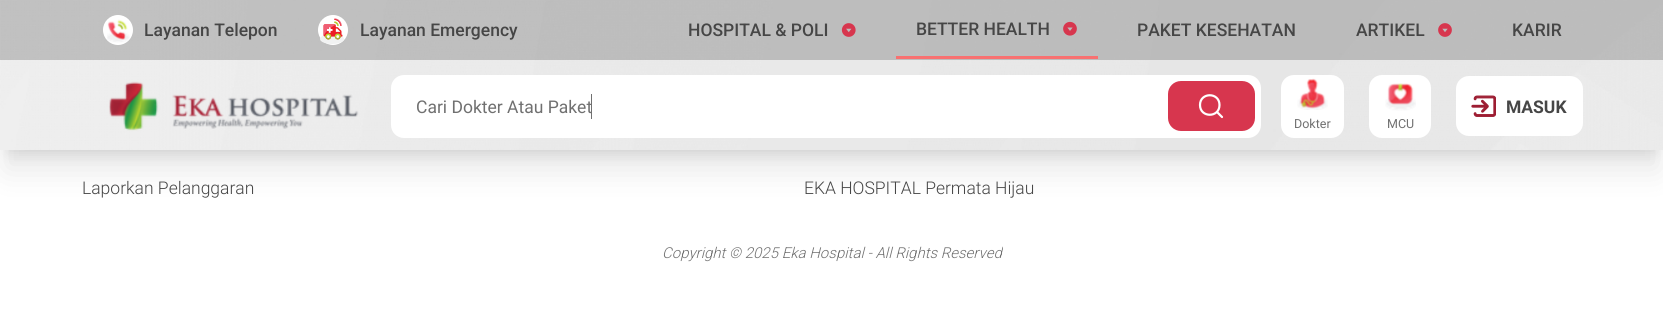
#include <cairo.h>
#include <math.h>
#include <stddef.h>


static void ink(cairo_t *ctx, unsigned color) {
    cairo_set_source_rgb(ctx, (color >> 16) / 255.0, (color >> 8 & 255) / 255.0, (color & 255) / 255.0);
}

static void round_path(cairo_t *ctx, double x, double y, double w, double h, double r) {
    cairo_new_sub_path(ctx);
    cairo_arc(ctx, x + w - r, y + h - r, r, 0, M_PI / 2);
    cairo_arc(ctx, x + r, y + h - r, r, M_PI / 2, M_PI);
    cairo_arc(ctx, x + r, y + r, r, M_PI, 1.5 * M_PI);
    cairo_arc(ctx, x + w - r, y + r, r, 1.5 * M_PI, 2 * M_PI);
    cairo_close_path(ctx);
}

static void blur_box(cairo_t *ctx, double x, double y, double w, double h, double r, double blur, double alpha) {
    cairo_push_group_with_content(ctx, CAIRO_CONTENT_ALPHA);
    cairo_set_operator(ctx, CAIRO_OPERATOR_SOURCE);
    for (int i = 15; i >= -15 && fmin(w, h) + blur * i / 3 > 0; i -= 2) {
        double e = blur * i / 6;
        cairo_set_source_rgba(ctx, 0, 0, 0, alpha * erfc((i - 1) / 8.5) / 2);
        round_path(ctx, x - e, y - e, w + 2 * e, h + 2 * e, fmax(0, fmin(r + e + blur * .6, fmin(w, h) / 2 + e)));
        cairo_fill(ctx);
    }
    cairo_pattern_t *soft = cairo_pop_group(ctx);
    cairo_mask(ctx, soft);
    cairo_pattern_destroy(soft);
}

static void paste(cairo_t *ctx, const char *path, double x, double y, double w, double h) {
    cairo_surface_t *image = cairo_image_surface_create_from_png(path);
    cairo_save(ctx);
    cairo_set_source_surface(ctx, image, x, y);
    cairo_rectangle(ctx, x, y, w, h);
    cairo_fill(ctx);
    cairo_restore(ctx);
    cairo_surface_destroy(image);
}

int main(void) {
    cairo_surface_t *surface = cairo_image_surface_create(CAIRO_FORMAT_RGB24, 1663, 312);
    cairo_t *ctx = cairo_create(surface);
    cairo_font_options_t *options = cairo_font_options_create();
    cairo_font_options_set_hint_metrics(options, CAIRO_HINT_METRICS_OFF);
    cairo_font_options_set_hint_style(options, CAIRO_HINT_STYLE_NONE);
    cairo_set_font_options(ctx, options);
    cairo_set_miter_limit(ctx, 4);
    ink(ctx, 0xFFFFFF);
    cairo_paint(ctx);
    ink(ctx, 0x000000);
    blur_box(ctx, 8, 18, 1648, 135, 0, 6, 0.1);
    blur_box(ctx, 6, 31, 1652, 138, 0, 15.5, 0.1);
    paste(ctx, "media/1.png", 0, 0, 1663, 150);
    cairo_set_source_rgba(ctx, 0, 0, 0, 0.19);
    cairo_rectangle(ctx, 0, 0, 1663, 60);
    cairo_fill(ctx);
    ink(ctx, 0xFFFFFF);
    cairo_arc(ctx, 118, 30, 15, 0, 2 * M_PI);
    cairo_fill(ctx);
    paste(ctx, "media/2.png", 107, 19, 23, 24);
    cairo_select_font_face(ctx, "Roboto Medium", CAIRO_FONT_SLANT_NORMAL, CAIRO_FONT_WEIGHT_NORMAL);
    cairo_set_font_size(ctx, 17.5);
    ink(ctx, 0x464646);
    cairo_move_to(ctx, 144, 36);
    cairo_show_text(ctx, "Layanan Telepon");
    ink(ctx, 0xFFFFFF);
    cairo_new_path(ctx);
    cairo_arc(ctx, 333, 30, 15, 0, 2 * M_PI);
    cairo_fill(ctx);
    paste(ctx, "media/3.png", 320, 18, 24, 26);
    ink(ctx, 0x464646);
    cairo_move_to(ctx, 360, 36);
    cairo_show_text(ctx, "Layanan Emergency");
    cairo_move_to(ctx, 688, 36);
    cairo_show_text(ctx, "HOSPITAL & POLI");
    paste(ctx, "media/4.png", 841, 23, 15, 14);
    ink(ctx, 0xF87171);
    cairo_rectangle(ctx, 896, 56, 202, 3);
    cairo_fill(ctx);
    ink(ctx, 0x464646);
    cairo_move_to(ctx, 916, 35);
    cairo_show_text(ctx, "BETTER HEALTH");
    paste(ctx, "media/5.png", 1063, 21, 14, 15);
    cairo_move_to(ctx, 1137, 36);
    cairo_show_text(ctx, "PAKET KESEHATAN");
    cairo_move_to(ctx, 1356, 36);
    cairo_show_text(ctx, "ARTIKEL");
    paste(ctx, "media/6.png", 1438, 23, 14, 14);
    cairo_move_to(ctx, 1512, 36);
    cairo_show_text(ctx, "KARIR");
    paste(ctx, "media/7.png", 109, 81, 250, 50);
    ink(ctx, 0xFFFFFF);
    round_path(ctx, 391, 75, 870, 63, 13);
    cairo_fill(ctx);
    ink(ctx, 0x707070);
    cairo_rectangle(ctx, 591, 94, 1, 25);
    cairo_fill(ctx);
    cairo_select_font_face(ctx, "Roboto", CAIRO_FONT_SLANT_NORMAL, CAIRO_FONT_WEIGHT_NORMAL);
    cairo_move_to(ctx, 416, 113);
    cairo_show_text(ctx, "Cari Dokter Atau Paket");
    ink(ctx, 0xD7364E);
    round_path(ctx, 1168, 81, 87, 50, 13);
    cairo_fill(ctx);
    cairo_new_path(ctx);
    cairo_move_to(ctx, 1219.5, 105);
    cairo_curve_to(ctx, 1219.5, 118, 1200, 118, 1200, 105);
    cairo_curve_to(ctx, 1200, 92, 1219.5, 92, 1219.5, 105);
    cairo_move_to(ctx, 1222, 117);
    cairo_line_to(ctx, 1217, 112);
    ink(ctx, 0xFFFFFF);
    cairo_set_line_width(ctx, 2.2);
    cairo_set_line_cap(ctx, CAIRO_LINE_CAP_ROUND);
    cairo_set_line_join(ctx, CAIRO_LINE_JOIN_ROUND);
    cairo_stroke(ctx);
    round_path(ctx, 1456, 76, 127, 60, 13);
    cairo_fill(ctx);
    paste(ctx, "media/8.png", 1471, 95, 25, 22);
    cairo_select_font_face(ctx, "Roboto", CAIRO_FONT_SLANT_NORMAL, CAIRO_FONT_WEIGHT_BOLD);
    ink(ctx, 0x464646);
    cairo_move_to(ctx, 1506, 113);
    cairo_show_text(ctx, "MASUK");
    ink(ctx, 0xFFFFFF);
    round_path(ctx, 1281, 75, 63, 63, 13);
    cairo_fill(ctx);
    paste(ctx, "media/9.png", 1297, 78, 31, 32);
    cairo_select_font_face(ctx, "Roboto", CAIRO_FONT_SLANT_NORMAL, CAIRO_FONT_WEIGHT_NORMAL);
    cairo_set_font_size(ctx, 12.5);
    ink(ctx, 0x707070);
    cairo_move_to(ctx, 1294, 128);
    cairo_show_text(ctx, "Dokter");
    ink(ctx, 0xFFFFFF);
    round_path(ctx, 1369, 75, 62, 63, 13);
    cairo_fill(ctx);
    paste(ctx, "media/10.png", 1385, 83, 31, 28);
    ink(ctx, 0x707070);
    cairo_move_to(ctx, 1387, 128);
    cairo_show_text(ctx, "MCU");
    cairo_select_font_face(ctx, "Roboto Light", CAIRO_FONT_SLANT_NORMAL, CAIRO_FONT_WEIGHT_NORMAL);
    cairo_set_font_size(ctx, 17.5);
    ink(ctx, 0x464646);
    cairo_move_to(ctx, 82, 194);
    cairo_show_text(ctx, "Laporkan Pelanggaran");
    cairo_move_to(ctx, 804, 194);
    cairo_show_text(ctx, "EKA HOSPITAL Permata Hijau");
    cairo_select_font_face(ctx, "Roboto Light", CAIRO_FONT_SLANT_ITALIC, CAIRO_FONT_WEIGHT_NORMAL);
    cairo_set_font_size(ctx, 15);
    ink(ctx, 0x707070);
    cairo_move_to(ctx, 662, 258);
    cairo_show_text(ctx, "Copyright © 2025 Eka Hospital - All Rights Reserved");
    cairo_surface_write_to_png(surface, "image.png");
    cairo_font_options_destroy(options);
    cairo_destroy(ctx);
    cairo_surface_destroy(surface);
    return 0;
}
